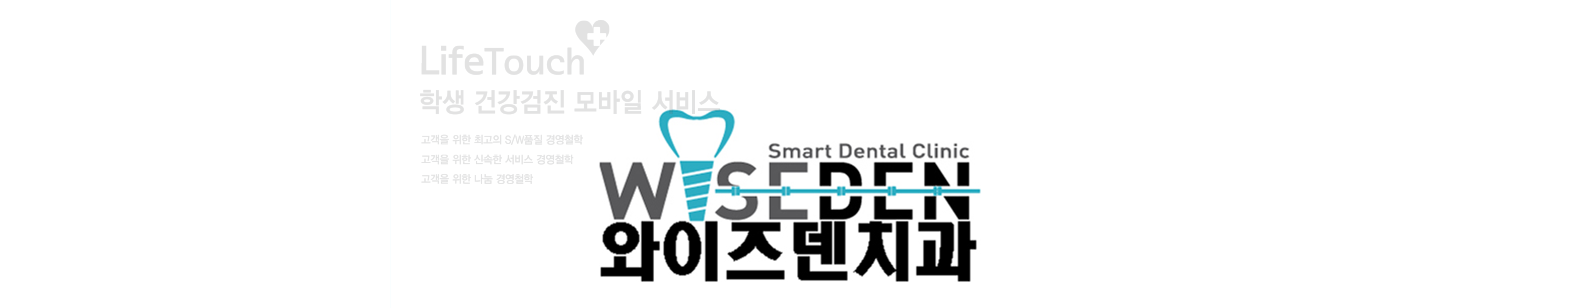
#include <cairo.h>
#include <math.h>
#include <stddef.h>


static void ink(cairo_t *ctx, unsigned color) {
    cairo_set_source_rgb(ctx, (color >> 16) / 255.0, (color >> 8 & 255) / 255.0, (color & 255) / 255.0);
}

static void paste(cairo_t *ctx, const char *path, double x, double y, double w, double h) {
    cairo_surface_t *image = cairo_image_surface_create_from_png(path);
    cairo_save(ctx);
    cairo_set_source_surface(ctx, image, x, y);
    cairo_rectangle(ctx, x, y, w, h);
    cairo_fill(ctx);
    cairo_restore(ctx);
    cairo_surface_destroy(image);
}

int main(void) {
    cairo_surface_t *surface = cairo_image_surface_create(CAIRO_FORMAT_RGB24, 1580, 308);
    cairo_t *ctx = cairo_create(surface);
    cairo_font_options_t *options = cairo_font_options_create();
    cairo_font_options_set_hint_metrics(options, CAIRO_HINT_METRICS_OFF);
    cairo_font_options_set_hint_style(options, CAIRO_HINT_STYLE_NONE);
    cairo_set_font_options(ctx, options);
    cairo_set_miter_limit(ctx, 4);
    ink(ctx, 0xFFFFFF);
    cairo_paint(ctx);
    ink(ctx, 0xFAFEFF);
    cairo_rectangle(ctx, 390, 0, 1, 308);
    cairo_fill(ctx);
    paste(ctx, "media/2.png", 599, 109, 382, 173);
    paste(ctx, "media/1.png", 420, 20, 300, 164);
    cairo_surface_write_to_png(surface, "image.png");
    cairo_font_options_destroy(options);
    cairo_destroy(ctx);
    cairo_surface_destroy(surface);
    return 0;
}
